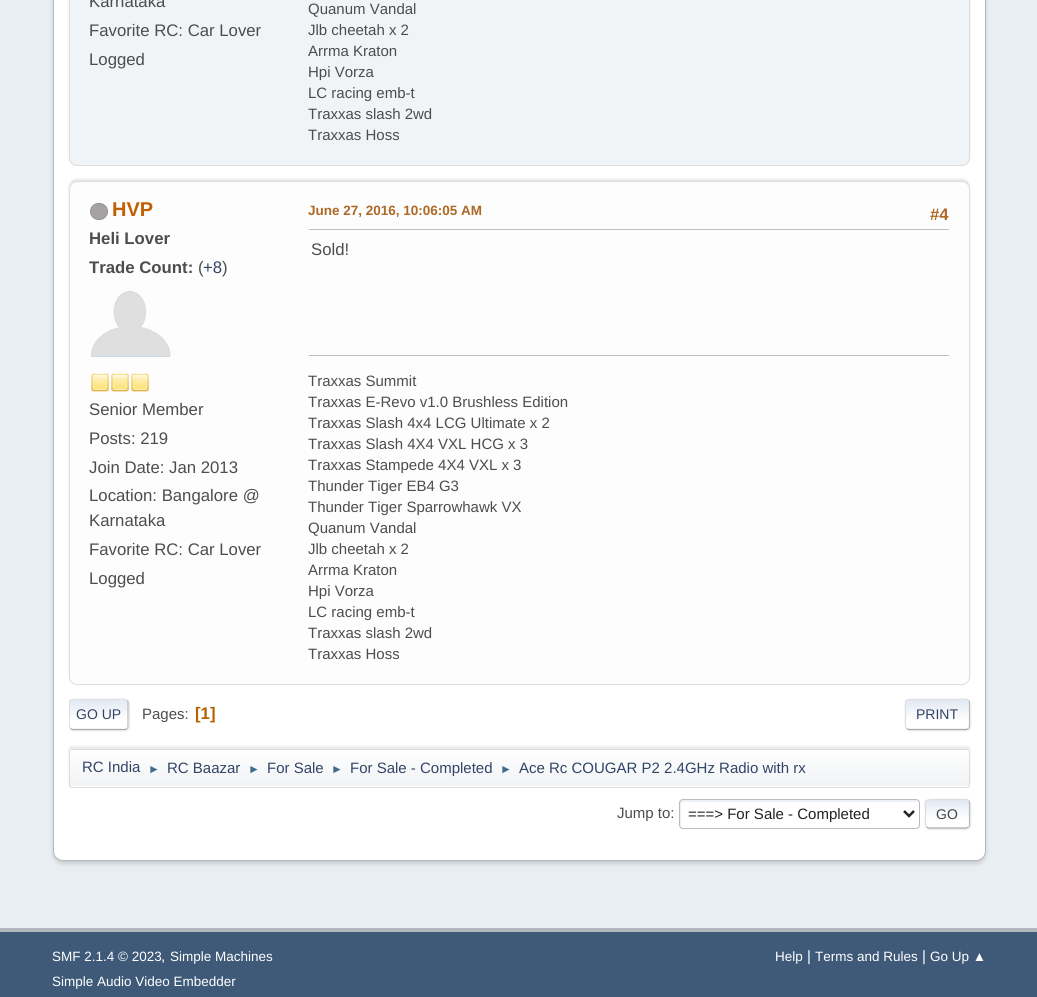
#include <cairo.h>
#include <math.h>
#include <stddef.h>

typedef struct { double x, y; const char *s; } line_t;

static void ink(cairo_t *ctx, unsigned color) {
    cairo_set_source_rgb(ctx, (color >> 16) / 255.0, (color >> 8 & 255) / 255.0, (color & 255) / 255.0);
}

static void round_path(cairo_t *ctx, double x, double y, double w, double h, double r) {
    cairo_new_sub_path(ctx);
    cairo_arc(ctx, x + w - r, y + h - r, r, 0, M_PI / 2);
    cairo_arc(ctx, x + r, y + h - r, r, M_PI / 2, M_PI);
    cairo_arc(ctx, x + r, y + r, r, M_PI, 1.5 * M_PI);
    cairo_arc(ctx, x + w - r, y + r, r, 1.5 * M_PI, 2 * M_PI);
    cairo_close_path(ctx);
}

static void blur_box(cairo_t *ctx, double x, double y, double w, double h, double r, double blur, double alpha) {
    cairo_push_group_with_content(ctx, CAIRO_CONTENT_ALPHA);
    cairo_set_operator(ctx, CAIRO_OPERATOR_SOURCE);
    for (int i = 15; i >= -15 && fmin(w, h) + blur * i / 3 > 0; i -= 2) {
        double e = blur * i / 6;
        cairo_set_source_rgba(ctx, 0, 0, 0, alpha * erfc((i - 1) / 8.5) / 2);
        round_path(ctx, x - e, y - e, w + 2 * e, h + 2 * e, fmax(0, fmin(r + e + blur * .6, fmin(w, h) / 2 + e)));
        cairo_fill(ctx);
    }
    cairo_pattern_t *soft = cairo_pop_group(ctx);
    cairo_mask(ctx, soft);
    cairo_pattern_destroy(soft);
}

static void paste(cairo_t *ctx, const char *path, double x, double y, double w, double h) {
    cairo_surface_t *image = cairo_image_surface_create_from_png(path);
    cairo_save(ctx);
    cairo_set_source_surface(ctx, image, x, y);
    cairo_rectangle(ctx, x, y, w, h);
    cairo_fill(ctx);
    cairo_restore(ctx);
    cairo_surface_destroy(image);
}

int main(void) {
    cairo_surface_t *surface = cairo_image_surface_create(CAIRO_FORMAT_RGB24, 1037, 997);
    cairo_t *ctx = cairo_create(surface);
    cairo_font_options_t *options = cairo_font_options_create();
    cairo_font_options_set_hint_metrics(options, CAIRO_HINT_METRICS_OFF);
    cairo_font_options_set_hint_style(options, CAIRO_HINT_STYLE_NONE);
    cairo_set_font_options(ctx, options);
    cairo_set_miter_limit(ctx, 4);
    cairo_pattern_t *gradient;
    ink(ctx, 0xE9EEF2);
    cairo_paint(ctx);
    ink(ctx, 0x000000);
    blur_box(ctx, 53, -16, 933, 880, 10, 2, 0.14);
    ink(ctx, 0xFFFFFF);
    round_path(ctx, 53.5, -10.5, 932, 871, 9.5);
    cairo_fill_preserve(ctx);
    ink(ctx, 0xB8B8B8);
    cairo_set_line_width(ctx, 1);
    cairo_stroke(ctx);
    ink(ctx, 0x000000);
    blur_box(ctx, 69, -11, 901, 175, 8, 1, 0.1);
    ink(ctx, 0xF0F4F7);
    round_path(ctx, 69.5, -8.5, 900, 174, 7.5);
    cairo_fill_preserve(ctx);
    ink(ctx, 0xDDDDDD);
    cairo_stroke(ctx);
    cairo_select_font_face(ctx, "Liberation Sans", CAIRO_FONT_SLANT_NORMAL, CAIRO_FONT_WEIGHT_NORMAL);
    cairo_set_font_size(ctx, 16.75);
    ink(ctx, 0x4D4D4D);
    {
        static const line_t items[] = {
            {89, 7, "Karnataka"},
            {89, 36, "Favorite RC: Car Lover"},
            {89, 65, "Logged"},
        };
        for (size_t i = 0; i < sizeof items / sizeof *items; i++) {
            cairo_move_to(ctx, items[i].x, items[i].y);
            cairo_show_text(ctx, items[i].s);
        }
    }
    cairo_set_font_size(ctx, 15);
    {
        static const line_t items[] = {
            {308, 14, "Quanum Vandal"},
            {308, 35, "Jlb cheetah x 2"},
            {308, 56, "Arrma Kraton"},
            {308, 77, "Hpi Vorza"},
            {308, 98, "LC racing emb-t"},
            {308, 119, "Traxxas slash 2wd"},
            {308, 140, "Traxxas Hoss"},
        };
        for (size_t i = 0; i < sizeof items / sizeof *items; i++) {
            cairo_move_to(ctx, items[i].x, items[i].y);
            cairo_show_text(ctx, items[i].s);
        }
    }
    ink(ctx, 0x000000);
    blur_box(ctx, 69, 179, 901, 504, 8, 1, 0.1);
    ink(ctx, 0xFDFDFD);
    round_path(ctx, 69.5, 181.5, 900, 503, 7.5);
    cairo_fill_preserve(ctx);
    ink(ctx, 0xDDDDDD);
    cairo_stroke(ctx);
    ink(ctx, 0xA7A2A2);
    round_path(ctx, 90.5, 203.5, 17, 16, 8);
    cairo_fill_preserve(ctx);
    ink(ctx, 0x969292);
    cairo_stroke(ctx);
    cairo_select_font_face(ctx, "Liberation Sans", CAIRO_FONT_SLANT_NORMAL, CAIRO_FONT_WEIGHT_BOLD);
    cairo_set_font_size(ctx, 20);
    ink(ctx, 0xC06002);
    cairo_move_to(ctx, 112, 216);
    cairo_show_text(ctx, "HVP");
    cairo_set_font_size(ctx, 16.75);
    ink(ctx, 0x4D4D4D);
    cairo_move_to(ctx, 89, 244);
    cairo_show_text(ctx, "Heli Lover");
    cairo_move_to(ctx, 89, 273);
    cairo_show_text(ctx, "Trade Count:");
    cairo_select_font_face(ctx, "Liberation Sans", CAIRO_FONT_SLANT_NORMAL, CAIRO_FONT_WEIGHT_NORMAL);
    cairo_move_to(ctx, 198, 273);
    cairo_show_text(ctx, "(");
    ink(ctx, 0x334466);
    cairo_move_to(ctx, 203, 273);
    cairo_show_text(ctx, "+8");
    ink(ctx, 0x4D4D4D);
    cairo_move_to(ctx, 222, 273);
    cairo_show_text(ctx, ")");
    paste(ctx, "media/1.png", 91, 291, 80, 66);
    paste(ctx, "media/2.png", 91, 373, 18, 19);
    paste(ctx, "media/2.png", 111, 373, 18, 19);
    paste(ctx, "media/2.png", 131, 373, 18, 19);
    {
        static const line_t items[] = {
            {89, 415, "Senior Member"},
            {89, 444, "Posts: 219"},
            {89, 473, "Join Date: Jan 2013"},
            {89, 501, "Location: Bangalore @"},
            {89, 526, "Karnataka"},
            {89, 555, "Favorite RC: Car Lover"},
            {89, 584, "Logged"},
        };
        for (size_t i = 0; i < sizeof items / sizeof *items; i++) {
            cairo_move_to(ctx, items[i].x, items[i].y);
            cairo_show_text(ctx, items[i].s);
        }
    }
    cairo_select_font_face(ctx, "Liberation Sans", CAIRO_FONT_SLANT_NORMAL, CAIRO_FONT_WEIGHT_BOLD);
    cairo_set_font_size(ctx, 13.5);
    ink(ctx, 0xAD6825);
    cairo_move_to(ctx, 308, 215);
    cairo_show_text(ctx, "June 27, 2016, 10:06:05 AM");
    cairo_set_font_size(ctx, 16.75);
    cairo_move_to(ctx, 930, 220);
    cairo_show_text(ctx, "#4");
    ink(ctx, 0xBFBFBF);
    cairo_rectangle(ctx, 309, 229, 640, 1);
    cairo_fill(ctx);
    cairo_select_font_face(ctx, "Liberation Sans", CAIRO_FONT_SLANT_NORMAL, CAIRO_FONT_WEIGHT_NORMAL);
    ink(ctx, 0x4D4D4D);
    cairo_move_to(ctx, 311, 255);
    cairo_show_text(ctx, "Sold!");
    ink(ctx, 0xBFBFBF);
    cairo_rectangle(ctx, 309, 355, 640, 1);
    cairo_fill(ctx);
    cairo_set_font_size(ctx, 15);
    ink(ctx, 0x4D4D4D);
    {
        static const line_t items[] = {
            {308, 386, "Traxxas Summit"},
            {308, 407, "Traxxas E-Revo v1.0 Brushless Edition"},
            {308, 428, "Traxxas Slash 4x4 LCG Ultimate x 2"},
            {308, 449, "Traxxas Slash 4X4 VXL HCG x 3"},
            {308, 470, "Traxxas Stampede 4X4 VXL x 3"},
            {308, 491, "Thunder Tiger EB4 G3"},
            {308, 512, "Thunder Tiger Sparrowhawk VX"},
            {308, 533, "Quanum Vandal"},
            {308, 554, "Jlb cheetah x 2"},
            {308, 575, "Arrma Kraton"},
            {308, 596, "Hpi Vorza"},
            {308, 617, "LC racing emb-t"},
            {308, 638, "Traxxas slash 2wd"},
            {308, 659, "Traxxas Hoss"},
        };
        for (size_t i = 0; i < sizeof items / sizeof *items; i++) {
            cairo_move_to(ctx, items[i].x, items[i].y);
            cairo_show_text(ctx, items[i].s);
        }
    }
    ink(ctx, 0xDDDDDD);
    blur_box(ctx, 70, 700, 60, 31, 4, 0.5, 0.57);
    ink(ctx, 0xFFFFFF);
    round_path(ctx, 69, 699, 60, 31, 4);
    cairo_fill(ctx);
    cairo_save(ctx);
    round_path(ctx, 69, 699, 60, 31, 4);
    cairo_clip(ctx);
    gradient = cairo_pattern_create_linear(99, 700, 99, 729);
    cairo_pattern_add_color_stop_rgba(gradient, 0, 0.886, 0.914, 0.953, 1);
    cairo_pattern_add_color_stop_rgba(gradient, 0.7, 1, 1, 1, 1);
    cairo_set_source(ctx, gradient);
    cairo_pattern_destroy(gradient);
    cairo_rectangle(ctx, 69, 700, 60, 29);
    cairo_fill(ctx);
    cairo_restore(ctx);
    cairo_new_path(ctx);
    cairo_move_to(ctx, 127, 700.5);
    cairo_curve_to(ctx, 128, 701, 128, 701.5, 128, 702.5);
    cairo_line_to(ctx, 128, 726);
    cairo_curve_to(ctx, 128, 727, 128, 728, 127, 728.5);
    ink(ctx, 0xBBBBBB);
    cairo_set_line_width(ctx, 1.2);
    cairo_stroke(ctx);
    cairo_new_path(ctx);
    cairo_move_to(ctx, 127, 728.5);
    cairo_line_to(ctx, 125.5, 729.5);
    cairo_line_to(ctx, 72, 729.5);
    cairo_line_to(ctx, 70.5, 728.5);
    ink(ctx, 0xAAAAAA);
    cairo_stroke(ctx);
    cairo_save(ctx);
    cairo_rectangle(ctx, 69, 690, 901, 49);
    cairo_clip(ctx);
    cairo_new_path(ctx);
    cairo_move_to(ctx, 70.5, 728.5);
    cairo_curve_to(ctx, 68, 726.5, 69.5, 717, 69.5, 714.5);
    cairo_curve_to(ctx, 69.5, 698.5, 66, 699.5, 81, 699.5);
    cairo_line_to(ctx, 116, 699.5);
    cairo_curve_to(ctx, 116.5, 699.5, 125, 698, 127, 700.5);
    ink(ctx, 0xDDDDDD);
    cairo_stroke(ctx);
    cairo_restore(ctx);
    cairo_set_font_size(ctx, 14);
    ink(ctx, 0x334466);
    cairo_move_to(ctx, 76, 719);
    cairo_show_text(ctx, "GO UP");
    cairo_set_font_size(ctx, 15);
    ink(ctx, 0x4D4D4D);
    cairo_move_to(ctx, 142, 719);
    cairo_show_text(ctx, "Pages:");
    cairo_select_font_face(ctx, "Liberation Sans", CAIRO_FONT_SLANT_NORMAL, CAIRO_FONT_WEIGHT_BOLD);
    cairo_set_font_size(ctx, 16.75);
    ink(ctx, 0xB46100);
    cairo_move_to(ctx, 195, 719);
    cairo_show_text(ctx, "[1]");
    ink(ctx, 0xDDDDDD);
    blur_box(ctx, 906, 700, 65, 31, 4, 0.5, 0.57);
    ink(ctx, 0xFFFFFF);
    round_path(ctx, 905, 699, 65, 31, 4);
    cairo_fill(ctx);
    cairo_save(ctx);
    round_path(ctx, 905, 699, 65, 31, 4);
    cairo_clip(ctx);
    gradient = cairo_pattern_create_linear(938, 700, 938, 729);
    cairo_pattern_add_color_stop_rgba(gradient, 0, 0.886, 0.914, 0.953, 1);
    cairo_pattern_add_color_stop_rgba(gradient, 0.7, 1, 1, 1, 1);
    cairo_set_source(ctx, gradient);
    cairo_pattern_destroy(gradient);
    cairo_rectangle(ctx, 905, 700, 65, 29);
    cairo_fill(ctx);
    cairo_restore(ctx);
    cairo_save(ctx);
    cairo_rectangle(ctx, 69, 690, 901, 49);
    cairo_clip(ctx);
    cairo_new_path(ctx);
    cairo_move_to(ctx, 968.5, 700.5);
    cairo_curve_to(ctx, 969, 701, 969.5, 701.5, 969.5, 702.5);
    cairo_line_to(ctx, 969.5, 726);
    cairo_curve_to(ctx, 969.5, 727, 969, 728, 968.5, 728.5);
    ink(ctx, 0xBBBBBB);
    cairo_stroke(ctx);
    cairo_restore(ctx);
    cairo_new_path(ctx);
    cairo_move_to(ctx, 968.5, 728.5);
    cairo_line_to(ctx, 966.5, 729.5);
    cairo_line_to(ctx, 908.5, 729.5);
    cairo_line_to(ctx, 906.5, 728.5);
    ink(ctx, 0xAAAAAA);
    cairo_stroke(ctx);
    cairo_new_path(ctx);
    cairo_move_to(ctx, 906.5, 728.5);
    cairo_curve_to(ctx, 904.5, 726.5, 905.5, 717, 905.5, 714.5);
    cairo_curve_to(ctx, 905.5, 698, 902.5, 699.5, 918.5, 699.5);
    cairo_line_to(ctx, 956.5, 699.5);
    cairo_curve_to(ctx, 957.5, 699.5, 966, 698, 968.5, 700.5);
    ink(ctx, 0xDDDDDD);
    cairo_stroke(ctx);
    cairo_select_font_face(ctx, "Liberation Sans", CAIRO_FONT_SLANT_NORMAL, CAIRO_FONT_WEIGHT_NORMAL);
    cairo_set_font_size(ctx, 14);
    ink(ctx, 0x334466);
    cairo_move_to(ctx, 916, 719);
    cairo_show_text(ctx, "PRINT");
    ink(ctx, 0x000000);
    blur_box(ctx, 69, 746, 901, 39, 2.5, 1, 0.08);
    ink(ctx, 0xFFFFFF);
    round_path(ctx, 69, 749, 901, 39, 2.5);
    cairo_fill(ctx);
    gradient = cairo_pattern_create_linear(519, 750, 519, 786);
    cairo_pattern_add_color_stop_rgba(gradient, 0, 1, 1, 1, 1);
    cairo_pattern_add_color_stop_rgba(gradient, 0.95, 0.945, 0.953, 0.961, 1);
    cairo_set_source(ctx, gradient);
    cairo_pattern_destroy(gradient);
    cairo_rectangle(ctx, 69, 750, 901, 36);
    cairo_fill(ctx);
    round_path(ctx, 69.5, 749.5, 900, 38, 2);
    ink(ctx, 0xDDDDDD);
    cairo_set_line_width(ctx, 1);
    cairo_stroke(ctx);
    cairo_set_font_size(ctx, 15);
    ink(ctx, 0x334466);
    cairo_move_to(ctx, 82, 772);
    cairo_show_text(ctx, "RC India");
    cairo_set_font_size(ctx, 12);
    ink(ctx, 0x3F6B8C);
    cairo_move_to(ctx, 148, 773);
    cairo_show_text(ctx, "►");
    cairo_set_font_size(ctx, 15);
    ink(ctx, 0x334466);
    cairo_move_to(ctx, 167, 773);
    cairo_show_text(ctx, "RC Baazar");
    cairo_set_font_size(ctx, 12);
    ink(ctx, 0x3F6B8C);
    cairo_move_to(ctx, 248, 773);
    cairo_show_text(ctx, "►");
    cairo_set_font_size(ctx, 15);
    ink(ctx, 0x334466);
    cairo_move_to(ctx, 267, 773);
    cairo_show_text(ctx, "For Sale");
    cairo_set_font_size(ctx, 12);
    ink(ctx, 0x3F6B8C);
    cairo_move_to(ctx, 331, 773);
    cairo_show_text(ctx, "►");
    cairo_set_font_size(ctx, 15);
    ink(ctx, 0x334466);
    cairo_move_to(ctx, 350, 773);
    cairo_show_text(ctx, "For Sale - Completed");
    cairo_set_font_size(ctx, 12);
    ink(ctx, 0x3F6B8C);
    cairo_move_to(ctx, 500, 773);
    cairo_show_text(ctx, "►");
    cairo_set_font_size(ctx, 15);
    ink(ctx, 0x334466);
    cairo_move_to(ctx, 519, 773);
    cairo_show_text(ctx, "Ace Rc COUGAR P2 2.4GHz Radio with rx");
    ink(ctx, 0x4D4D4D);
    cairo_move_to(ctx, 617, 818);
    cairo_show_text(ctx, "Jump to:");
    ink(ctx, 0xECF1F8);
    cairo_new_path(ctx);
    cairo_move_to(ctx, 684, 802);
    cairo_line_to(ctx, 918, 802);
    cairo_line_to(ctx, 919, 802);
    cairo_curve_to(ctx, 919, 801, 918, 800, 916, 800);
    cairo_line_to(ctx, 682, 800);
    cairo_curve_to(ctx, 681, 800, 680, 801, 680, 802);
    cairo_line_to(ctx, 680, 826);
    cairo_curve_to(ctx, 680, 826, 680, 827, 681, 828);
    cairo_line_to(ctx, 681, 805);
    cairo_curve_to(ctx, 681, 804, 682, 802, 684, 802);
    cairo_close_path(ctx);
    cairo_fill(ctx);
    round_path(ctx, 679.5, 799.5, 240, 29, 3.5);
    ink(ctx, 0xBBBBBB);
    cairo_stroke(ctx);
    cairo_new_path(ctx);
    cairo_move_to(ctx, 904, 811);
    cairo_line_to(ctx, 909, 816);
    cairo_line_to(ctx, 914, 811);
    ink(ctx, 0x222222);
    cairo_set_line_width(ctx, 2.5);
    cairo_stroke(ctx);
    cairo_move_to(ctx, 688, 819);
    cairo_show_text(ctx, "===> For Sale - Completed");
    ink(ctx, 0xDDDDDD);
    blur_box(ctx, 926, 800, 45, 30, 4, 0.5, 0.57);
    ink(ctx, 0xFFFFFF);
    round_path(ctx, 925, 799, 45, 30, 4);
    cairo_fill(ctx);
    cairo_save(ctx);
    round_path(ctx, 925, 799, 45, 30, 4);
    cairo_clip(ctx);
    gradient = cairo_pattern_create_linear(948, 800, 948, 828);
    cairo_pattern_add_color_stop_rgba(gradient, 0, 0.886, 0.914, 0.953, 1);
    cairo_pattern_add_color_stop_rgba(gradient, 0.7, 1, 1, 1, 1);
    cairo_set_source(ctx, gradient);
    cairo_pattern_destroy(gradient);
    cairo_rectangle(ctx, 925, 800, 45, 28);
    cairo_fill(ctx);
    gradient = cairo_pattern_create_linear(948, 828, 948, 855);
    cairo_pattern_add_color_stop_rgba(gradient, 0, 0.886, 0.914, 0.953, 1);
    cairo_pattern_add_color_stop_rgba(gradient, 0.7, 1, 1, 1, 1);
    cairo_set_source(ctx, gradient);
    cairo_pattern_destroy(gradient);
    cairo_rectangle(ctx, 925, 828, 45, 1);
    cairo_fill(ctx);
    cairo_restore(ctx);
    cairo_new_path(ctx);
    cairo_move_to(ctx, 968.5, 800.5);
    cairo_curve_to(ctx, 969, 801, 969.5, 801.5, 969.5, 802.5);
    cairo_line_to(ctx, 969.5, 825);
    cairo_curve_to(ctx, 969.5, 826, 969, 826.5, 968.5, 827);
    ink(ctx, 0xBBBBBB);
    cairo_set_line_width(ctx, 1.2);
    cairo_stroke(ctx);
    cairo_new_path(ctx);
    cairo_move_to(ctx, 968.5, 827);
    cairo_line_to(ctx, 966, 828);
    cairo_line_to(ctx, 929, 828);
    cairo_line_to(ctx, 926.5, 827);
    ink(ctx, 0xAAAAAA);
    cairo_stroke(ctx);
    cairo_new_path(ctx);
    cairo_move_to(ctx, 926.5, 827);
    cairo_curve_to(ctx, 924.5, 825, 925.5, 816.5, 925.5, 814);
    cairo_curve_to(ctx, 925.5, 800.5, 922.5, 799.5, 935, 799.5);
    cairo_line_to(ctx, 960, 799.5);
    cairo_curve_to(ctx, 961.5, 799.5, 966.5, 798.5, 968.5, 800.5);
    ink(ctx, 0xDDDDDD);
    cairo_stroke(ctx);
    cairo_set_font_size(ctx, 14);
    ink(ctx, 0x444444);
    cairo_move_to(ctx, 936, 819);
    cairo_show_text(ctx, "GO");
    ink(ctx, 0x3E5A78);
    cairo_rectangle(ctx, 0, 932, 1037, 65);
    cairo_fill(ctx);
    ink(ctx, 0xB2B6BD);
    cairo_rectangle(ctx, 0, 928, 1037, 4);
    cairo_fill(ctx);
    cairo_set_font_size(ctx, 13.5);
    ink(ctx, 0xFFFFFF);
    cairo_move_to(ctx, 52, 961);
    cairo_show_text(ctx, "SMF 2.1.4 © 2023");
    cairo_set_font_size(ctx, 15);
    cairo_move_to(ctx, 161, 961);
    cairo_show_text(ctx, ",");
    cairo_set_font_size(ctx, 13.5);
    {
        static const line_t items[] = {
            {170, 961, "Simple Machines"},
            {52, 986, "Simple Audio Video Embedder"},
            {775, 961, "Help"},
        };
        for (size_t i = 0; i < sizeof items / sizeof *items; i++) {
            cairo_move_to(ctx, items[i].x, items[i].y);
            cairo_show_text(ctx, items[i].s);
        }
    }
    cairo_set_font_size(ctx, 15);
    cairo_move_to(ctx, 807, 961);
    cairo_show_text(ctx, "|");
    cairo_set_font_size(ctx, 13.5);
    cairo_move_to(ctx, 815, 961);
    cairo_show_text(ctx, "Terms and Rules");
    cairo_set_font_size(ctx, 15);
    cairo_move_to(ctx, 922, 961);
    cairo_show_text(ctx, "|");
    cairo_set_font_size(ctx, 13.5);
    cairo_move_to(ctx, 930, 961);
    cairo_show_text(ctx, "Go Up ▲");
    cairo_surface_write_to_png(surface, "image.png");
    cairo_font_options_destroy(options);
    cairo_destroy(ctx);
    cairo_surface_destroy(surface);
    return 0;
}
